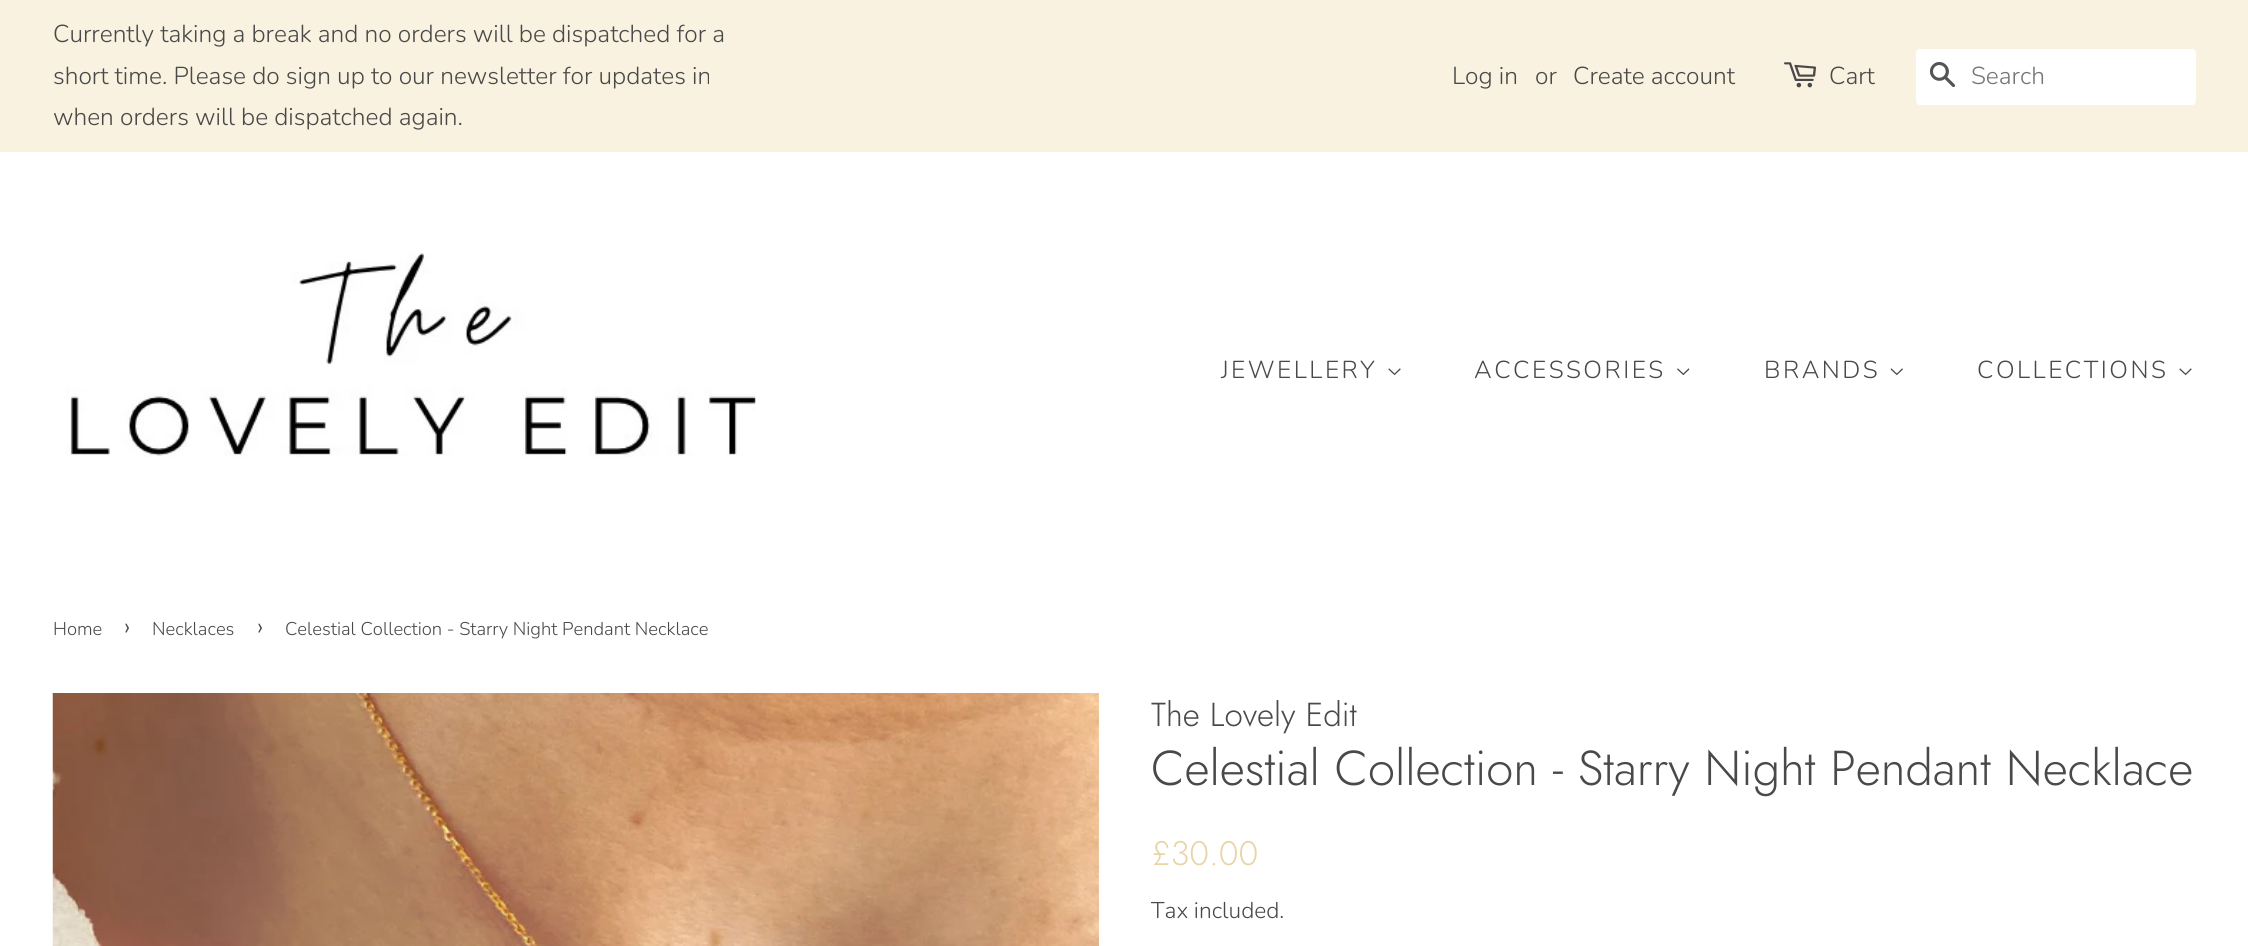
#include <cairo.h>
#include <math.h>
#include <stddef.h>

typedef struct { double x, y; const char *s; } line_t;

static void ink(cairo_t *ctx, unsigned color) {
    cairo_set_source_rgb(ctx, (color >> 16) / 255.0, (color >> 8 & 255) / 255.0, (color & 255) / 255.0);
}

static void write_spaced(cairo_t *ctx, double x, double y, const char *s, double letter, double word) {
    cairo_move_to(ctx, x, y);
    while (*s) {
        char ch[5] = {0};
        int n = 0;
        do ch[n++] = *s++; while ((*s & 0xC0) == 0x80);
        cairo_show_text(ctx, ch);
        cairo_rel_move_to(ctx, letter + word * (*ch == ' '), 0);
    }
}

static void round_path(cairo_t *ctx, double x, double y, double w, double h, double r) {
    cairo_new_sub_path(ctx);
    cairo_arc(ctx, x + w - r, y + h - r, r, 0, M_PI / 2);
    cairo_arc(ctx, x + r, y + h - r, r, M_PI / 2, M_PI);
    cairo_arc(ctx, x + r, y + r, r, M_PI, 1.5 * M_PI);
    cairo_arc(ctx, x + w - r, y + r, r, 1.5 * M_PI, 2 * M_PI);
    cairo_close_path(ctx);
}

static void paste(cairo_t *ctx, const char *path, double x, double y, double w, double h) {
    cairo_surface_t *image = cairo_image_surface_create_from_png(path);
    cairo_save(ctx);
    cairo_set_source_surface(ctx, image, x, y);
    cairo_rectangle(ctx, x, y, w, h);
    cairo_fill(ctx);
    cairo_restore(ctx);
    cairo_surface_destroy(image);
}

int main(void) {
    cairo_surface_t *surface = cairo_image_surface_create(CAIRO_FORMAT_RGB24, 2248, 946);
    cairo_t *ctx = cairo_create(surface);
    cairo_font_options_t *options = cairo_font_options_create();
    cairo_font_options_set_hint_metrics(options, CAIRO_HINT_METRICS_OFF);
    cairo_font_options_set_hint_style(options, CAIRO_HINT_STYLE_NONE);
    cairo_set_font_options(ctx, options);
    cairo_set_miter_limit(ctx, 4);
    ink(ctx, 0xFFFFFF);
    cairo_paint(ctx);
    ink(ctx, 0xFAF2E0);
    cairo_rectangle(ctx, 0, 0, 2248, 152);
    cairo_fill(ctx);
    cairo_select_font_face(ctx, "Nunito Light", CAIRO_FONT_SLANT_NORMAL, CAIRO_FONT_WEIGHT_NORMAL);
    cairo_set_font_size(ctx, 24.5);
    ink(ctx, 0x494949);
    {
        static const line_t items[] = {
            {53, 42, "Currently taking a break and no orders will be dispatched for a"},
            {53, 84, "short time. Please do sign up to our newsletter for updates in"},
            {53, 125, "when orders will be dispatched again."},
            {1452, 84, "Log in"},
            {1535, 84, "or"},
            {1573, 84, "Create account"},
        };
        for (size_t i = 0; i < sizeof items / sizeof *items; i++) {
            cairo_move_to(ctx, items[i].x, items[i].y);
            cairo_show_text(ctx, items[i].s);
        }
    }
    paste(ctx, "media/1.png", 1784, 62, 32, 26);
    cairo_move_to(ctx, 1829, 84);
    cairo_show_text(ctx, "Cart");
    ink(ctx, 0xFFFFFF);
    round_path(ctx, 1916, 49, 280, 56, 4);
    cairo_fill(ctx);
    paste(ctx, "media/2.png", 1929, 62, 27, 25);
    ink(ctx, 0x757575);
    cairo_move_to(ctx, 1971, 84);
    cairo_show_text(ctx, "Search");
    paste(ctx, "media/3.png", 66, 253, 690, 204);
    ink(ctx, 0x494949);
    write_spaced(ctx, 1221, 378, "JEWELLERY", 2.5, 0);
    paste(ctx, "media/4.png", 1388, 368, 13, 8);
    write_spaced(ctx, 1474, 378, "ACCESSORIES", 2.5, 0);
    paste(ctx, "media/5.png", 1677, 368, 13, 8);
    write_spaced(ctx, 1764, 378, "BRANDS", 2.5, 0);
    paste(ctx, "media/6.png", 1890, 368, 13, 8);
    write_spaced(ctx, 1977, 378, "COLLECTIONS", 2.5, 0);
    paste(ctx, "media/4.png", 2179, 368, 13, 8);
    cairo_set_font_size(ctx, 18.4);
    cairo_move_to(ctx, 53, 635);
    cairo_show_text(ctx, "Home");
    cairo_set_font_size(ctx, 26);
    cairo_move_to(ctx, 124, 635);
    cairo_show_text(ctx, "›");
    cairo_set_font_size(ctx, 18.4);
    cairo_move_to(ctx, 152, 635);
    cairo_show_text(ctx, "Necklaces");
    cairo_set_font_size(ctx, 26);
    cairo_move_to(ctx, 257, 635);
    cairo_show_text(ctx, "›");
    cairo_set_font_size(ctx, 18.4);
    cairo_move_to(ctx, 285, 635);
    cairo_show_text(ctx, "Celestial Collection - Starry Night Pendant Necklace");
    paste(ctx, "media/7.png", 52, 693, 1047, 253);
    cairo_select_font_face(ctx, "Jost Light", CAIRO_FONT_SLANT_NORMAL, CAIRO_FONT_WEIGHT_NORMAL);
    cairo_set_font_size(ctx, 33.25);
    cairo_move_to(ctx, 1151, 726);
    cairo_show_text(ctx, "The Lovely Edit");
    cairo_set_font_size(ctx, 49);
    cairo_move_to(ctx, 1151, 785);
    cairo_show_text(ctx, "Celestial Collection - Starry Night Pendant Necklace");
    cairo_set_font_size(ctx, 34);
    ink(ctx, 0xE9D3A7);
    cairo_move_to(ctx, 1151, 865);
    cairo_show_text(ctx, "£30.00");
    cairo_select_font_face(ctx, "Nunito Light", CAIRO_FONT_SLANT_NORMAL, CAIRO_FONT_WEIGHT_NORMAL);
    cairo_set_font_size(ctx, 22.75);
    ink(ctx, 0x494949);
    cairo_move_to(ctx, 1151, 918);
    cairo_show_text(ctx, "Tax included.");
    cairo_surface_write_to_png(surface, "image.png");
    cairo_font_options_destroy(options);
    cairo_destroy(ctx);
    cairo_surface_destroy(surface);
    return 0;
}
